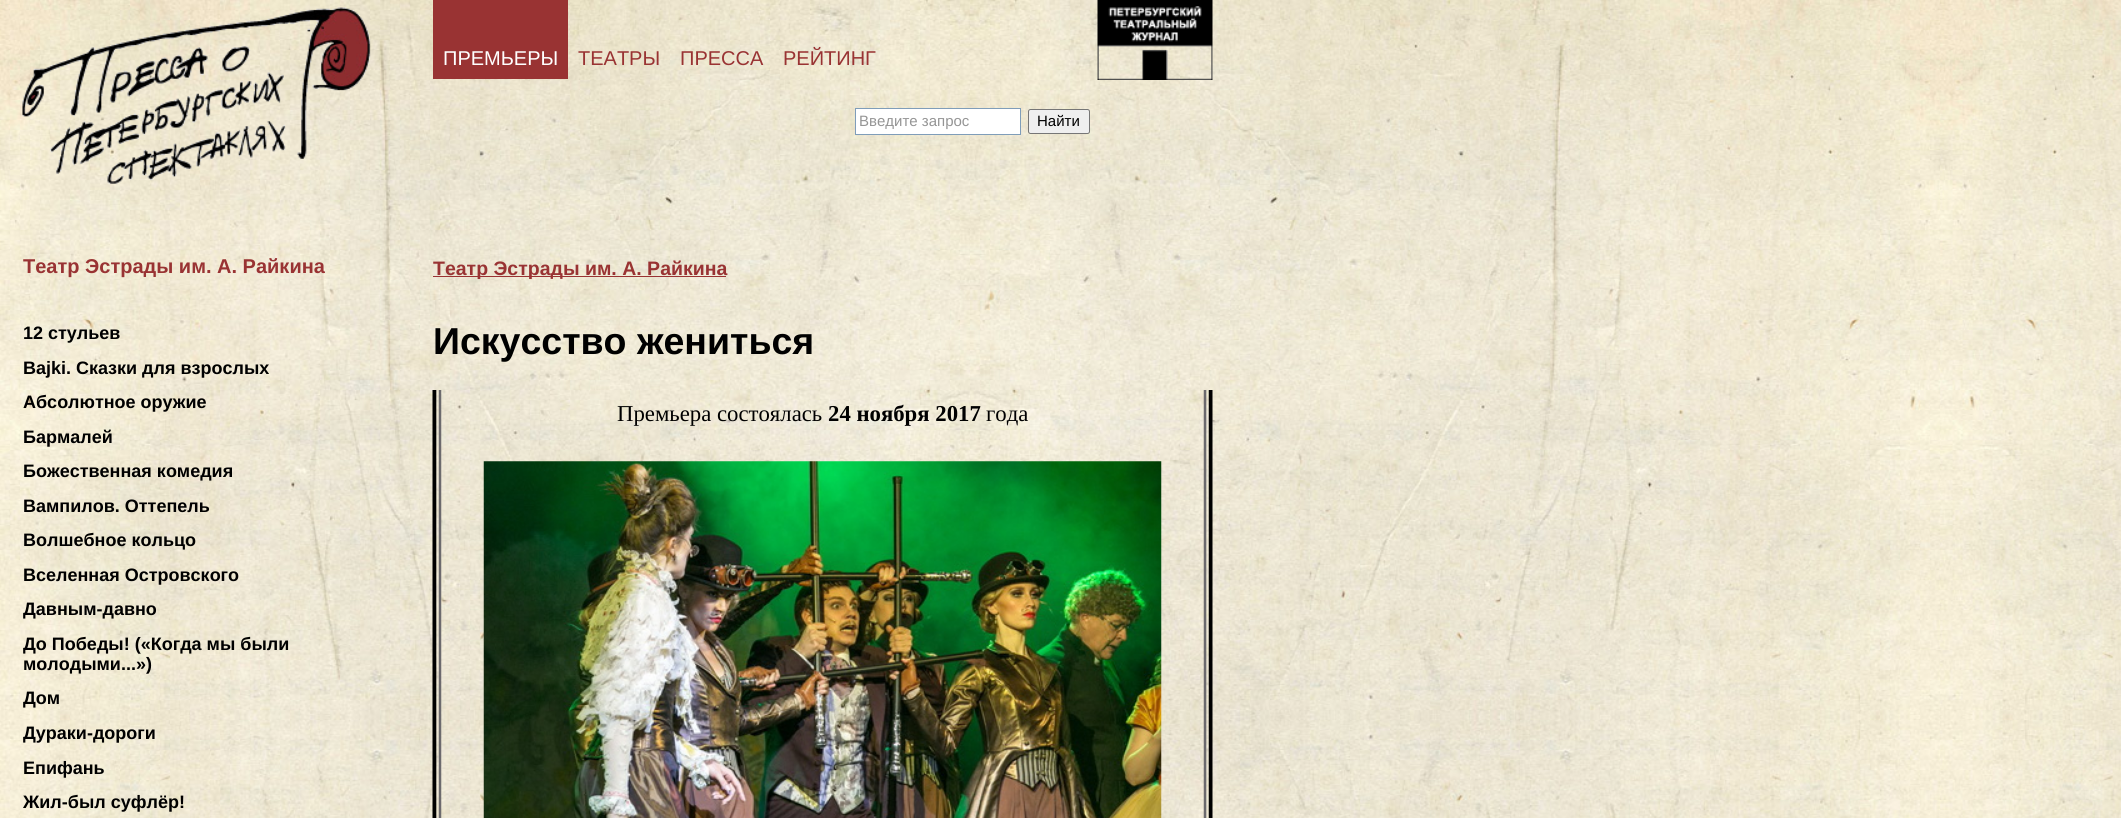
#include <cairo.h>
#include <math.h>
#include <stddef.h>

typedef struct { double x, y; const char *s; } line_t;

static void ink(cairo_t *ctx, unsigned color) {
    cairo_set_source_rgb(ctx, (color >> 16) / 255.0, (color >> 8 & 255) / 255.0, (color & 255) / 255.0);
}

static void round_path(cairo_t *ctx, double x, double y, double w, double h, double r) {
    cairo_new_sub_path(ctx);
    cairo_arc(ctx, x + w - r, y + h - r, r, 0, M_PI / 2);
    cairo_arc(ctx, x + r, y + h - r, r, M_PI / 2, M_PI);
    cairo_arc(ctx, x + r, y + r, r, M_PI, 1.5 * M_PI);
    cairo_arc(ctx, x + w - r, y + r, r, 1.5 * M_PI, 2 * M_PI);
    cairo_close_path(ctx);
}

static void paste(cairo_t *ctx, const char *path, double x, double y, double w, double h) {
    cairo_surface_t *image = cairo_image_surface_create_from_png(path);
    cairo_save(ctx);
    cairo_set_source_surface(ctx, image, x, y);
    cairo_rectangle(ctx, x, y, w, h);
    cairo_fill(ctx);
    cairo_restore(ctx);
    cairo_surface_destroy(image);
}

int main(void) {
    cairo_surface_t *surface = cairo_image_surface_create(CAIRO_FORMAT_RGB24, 2121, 818);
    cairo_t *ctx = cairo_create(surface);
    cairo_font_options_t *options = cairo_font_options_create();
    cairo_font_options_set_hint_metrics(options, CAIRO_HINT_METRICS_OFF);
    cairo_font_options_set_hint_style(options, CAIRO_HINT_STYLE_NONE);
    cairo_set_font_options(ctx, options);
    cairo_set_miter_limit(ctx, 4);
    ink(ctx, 0xFFFFFF);
    cairo_paint(ctx);
    paste(ctx, "media/1.png", 0, 0, 2121, 818);
    paste(ctx, "media/2.png", 22, 7, 349, 177);
    ink(ctx, 0x993333);
    cairo_rectangle(ctx, 433, 0, 135, 79);
    cairo_fill(ctx);
    cairo_select_font_face(ctx, "Liberation Sans", CAIRO_FONT_SLANT_NORMAL, CAIRO_FONT_WEIGHT_NORMAL);
    cairo_set_font_size(ctx, 20);
    ink(ctx, 0xFFFFFF);
    cairo_move_to(ctx, 443, 65);
    cairo_show_text(ctx, "ПРЕМЬЕРЫ");
    ink(ctx, 0x993333);
    {
        static const line_t items[] = {
            {578, 65, "ТЕАТРЫ"},
            {680, 65, "ПРЕССА"},
            {783, 65, "РЕЙТИНГ"},
        };
        for (size_t i = 0; i < sizeof items / sizeof *items; i++) {
            cairo_move_to(ctx, items[i].x, items[i].y);
            cairo_show_text(ctx, items[i].s);
        }
    }
    paste(ctx, "media/3.png", 1097, 0, 116, 80);
    ink(ctx, 0xFFFFFF);
    cairo_rectangle(ctx, 855.5, 108.5, 165, 26);
    cairo_fill_preserve(ctx);
    ink(ctx, 0x7F9DB9);
    cairo_set_line_width(ctx, 1);
    cairo_stroke(ctx);
    cairo_set_font_size(ctx, 15);
    ink(ctx, 0x959595);
    cairo_move_to(ctx, 859, 126);
    cairo_show_text(ctx, "Введите запрос");
    ink(ctx, 0xEFEFEF);
    round_path(ctx, 1028.5, 109.5, 61, 24, 2);
    cairo_fill_preserve(ctx);
    ink(ctx, 0x767676);
    cairo_stroke(ctx);
    ink(ctx, 0x000000);
    cairo_move_to(ctx, 1037, 126);
    cairo_show_text(ctx, "Найти");
    cairo_select_font_face(ctx, "Liberation Sans", CAIRO_FONT_SLANT_NORMAL, CAIRO_FONT_WEIGHT_BOLD);
    cairo_set_font_size(ctx, 20);
    ink(ctx, 0x993333);
    cairo_move_to(ctx, 23, 273);
    cairo_show_text(ctx, "Театр Эстрады им. А. Райкина");
    cairo_set_font_size(ctx, 18);
    ink(ctx, 0x000000);
    {
        static const line_t items[] = {
            {23, 339, "12 стульев"},
            {23, 374, "Bajki. Сказки для взрослых"},
            {23, 408, "Абсолютное оружие"},
            {23, 443, "Бармалей"},
            {23, 477, "Божественная комедия"},
            {23, 512, "Вампилов. Оттепель"},
            {23, 546, "Волшебное кольцо"},
            {23, 581, "Вселенная Островского"},
            {23, 615, "Давным-давно"},
            {23, 650, "До Победы! («Когда мы были"},
            {23, 670, "молодыми...»)"},
            {23, 704, "Дом"},
            {23, 739, "Дураки-дороги"},
            {23, 774, "Епифань"},
            {23, 808, "Жил-был суфлёр!"},
        };
        for (size_t i = 0; i < sizeof items / sizeof *items; i++) {
            cairo_move_to(ctx, items[i].x, items[i].y);
            cairo_show_text(ctx, items[i].s);
        }
    }
    ink(ctx, 0x993333);
    cairo_rectangle(ctx, 433, 276, 293, 1);
    cairo_fill(ctx);
    cairo_set_font_size(ctx, 19.5);
    cairo_move_to(ctx, 433, 275);
    cairo_show_text(ctx, "Театр Эстрады им. А. Райкина");
    cairo_set_font_size(ctx, 37.5);
    ink(ctx, 0x000000);
    cairo_move_to(ctx, 433, 354);
    cairo_show_text(ctx, "Искусство жениться");
    paste(ctx, "media/4.png", 432, 390, 10, 428);
    paste(ctx, "media/5.png", 1203, 390, 10, 428);
    cairo_select_font_face(ctx, "Liberation Serif", CAIRO_FONT_SLANT_NORMAL, CAIRO_FONT_WEIGHT_NORMAL);
    cairo_set_font_size(ctx, 22.75);
    cairo_move_to(ctx, 617, 421);
    cairo_show_text(ctx, "Премьера состоялась");
    cairo_select_font_face(ctx, "Liberation Serif", CAIRO_FONT_SLANT_NORMAL, CAIRO_FONT_WEIGHT_BOLD);
    cairo_move_to(ctx, 828, 421);
    cairo_show_text(ctx, "24 ноября 2017");
    cairo_select_font_face(ctx, "Liberation Serif", CAIRO_FONT_SLANT_NORMAL, CAIRO_FONT_WEIGHT_NORMAL);
    cairo_move_to(ctx, 986, 421);
    cairo_show_text(ctx, "года");
    paste(ctx, "media/6.png", 483, 461, 679, 357);
    cairo_surface_write_to_png(surface, "image.png");
    cairo_font_options_destroy(options);
    cairo_destroy(ctx);
    cairo_surface_destroy(surface);
    return 0;
}
